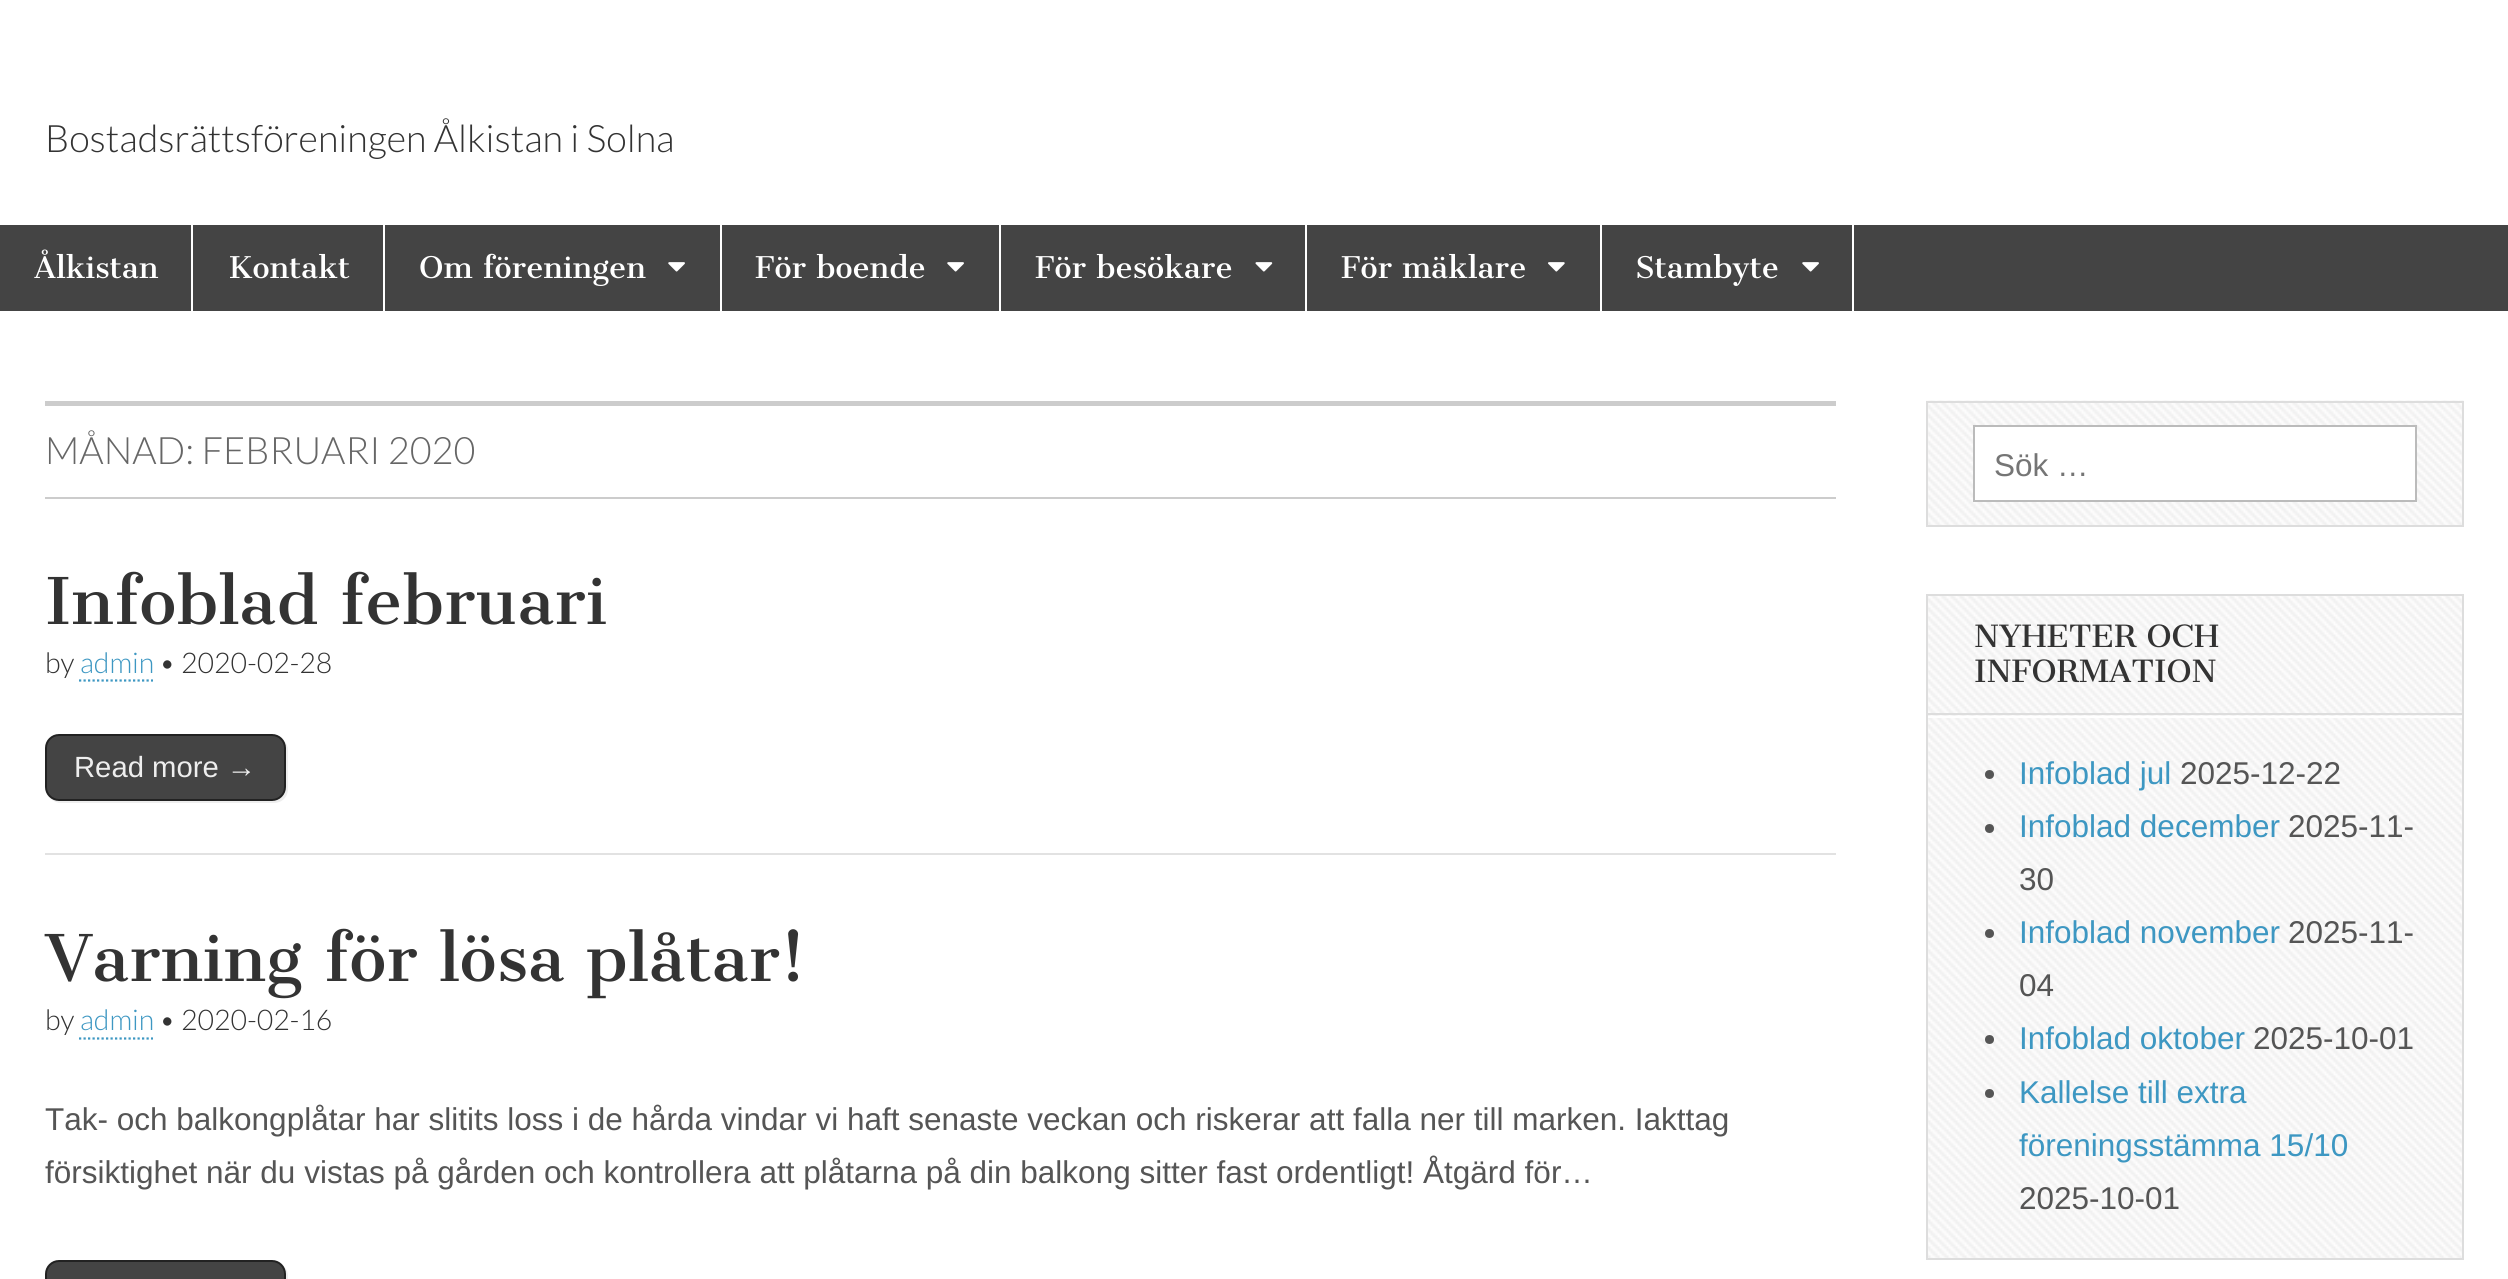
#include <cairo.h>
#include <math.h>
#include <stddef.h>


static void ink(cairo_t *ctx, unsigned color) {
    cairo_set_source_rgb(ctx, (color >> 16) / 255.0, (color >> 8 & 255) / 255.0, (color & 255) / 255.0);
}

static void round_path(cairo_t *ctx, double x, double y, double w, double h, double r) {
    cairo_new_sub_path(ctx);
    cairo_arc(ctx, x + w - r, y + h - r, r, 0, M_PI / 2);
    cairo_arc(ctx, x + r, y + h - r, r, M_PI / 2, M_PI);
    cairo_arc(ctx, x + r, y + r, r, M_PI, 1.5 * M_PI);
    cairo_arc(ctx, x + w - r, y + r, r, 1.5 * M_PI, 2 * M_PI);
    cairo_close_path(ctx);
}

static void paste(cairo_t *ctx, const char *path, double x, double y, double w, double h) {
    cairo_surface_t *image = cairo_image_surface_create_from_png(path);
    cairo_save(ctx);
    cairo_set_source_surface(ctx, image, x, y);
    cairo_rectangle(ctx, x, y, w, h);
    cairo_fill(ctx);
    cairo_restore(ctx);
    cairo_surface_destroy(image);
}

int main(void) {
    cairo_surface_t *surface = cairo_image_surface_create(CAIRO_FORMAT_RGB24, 2508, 1279);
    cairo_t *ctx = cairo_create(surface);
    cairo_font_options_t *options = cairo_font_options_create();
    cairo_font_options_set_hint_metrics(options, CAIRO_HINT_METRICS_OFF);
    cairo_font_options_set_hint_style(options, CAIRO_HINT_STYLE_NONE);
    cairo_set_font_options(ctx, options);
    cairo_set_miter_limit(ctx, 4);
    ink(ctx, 0xFFFFFF);
    cairo_paint(ctx);
    cairo_select_font_face(ctx, "Lato Light", CAIRO_FONT_SLANT_NORMAL, CAIRO_FONT_WEIGHT_NORMAL);
    cairo_set_font_size(ctx, 37.75);
    ink(ctx, 0x333333);
    cairo_move_to(ctx, 45, 152);
    cairo_show_text(ctx, "Bostadsrättsföreningen Ålkistan i Solna");
    ink(ctx, 0x444444);
    cairo_rectangle(ctx, 0, 225, 2508, 86);
    cairo_fill(ctx);
    ink(ctx, 0xFFFFFF);
    cairo_rectangle(ctx, 191, 225, 2, 86);
    cairo_fill(ctx);
    cairo_select_font_face(ctx, "Cantata One", CAIRO_FONT_SLANT_NORMAL, CAIRO_FONT_WEIGHT_NORMAL);
    cairo_set_font_size(ctx, 29.25);
    cairo_move_to(ctx, 34, 278);
    cairo_show_text(ctx, "Ålkistan");
    cairo_rectangle(ctx, 383, 225, 2, 86);
    cairo_fill(ctx);
    cairo_move_to(ctx, 228, 278);
    cairo_show_text(ctx, "Kontakt");
    cairo_rectangle(ctx, 720, 225, 2, 86);
    cairo_fill(ctx);
    cairo_move_to(ctx, 419, 278);
    cairo_show_text(ctx, "Om föreningen");
    paste(ctx, "media/1.png", 668, 262, 17, 10);
    cairo_rectangle(ctx, 999, 225, 2, 86);
    cairo_fill(ctx);
    cairo_move_to(ctx, 755, 278);
    cairo_show_text(ctx, "För boende");
    paste(ctx, "media/1.png", 947, 262, 17, 10);
    cairo_rectangle(ctx, 1305, 225, 2, 86);
    cairo_fill(ctx);
    cairo_move_to(ctx, 1035, 278);
    cairo_show_text(ctx, "För besökare");
    paste(ctx, "media/2.png", 1255, 262, 18, 10);
    cairo_rectangle(ctx, 1600, 225, 2, 86);
    cairo_fill(ctx);
    cairo_move_to(ctx, 1341, 278);
    cairo_show_text(ctx, "För mäklare");
    paste(ctx, "media/3.png", 1548, 262, 17, 10);
    cairo_rectangle(ctx, 1852, 225, 2, 86);
    cairo_fill(ctx);
    cairo_move_to(ctx, 1635, 278);
    cairo_show_text(ctx, "Stambyte");
    paste(ctx, "media/1.png", 1802, 262, 17, 10);
    ink(ctx, 0xCCCCCC);
    cairo_rectangle(ctx, 45, 401, 1791, 5);
    cairo_fill(ctx);
    cairo_rectangle(ctx, 45, 497, 1791, 2);
    cairo_fill(ctx);
    cairo_select_font_face(ctx, "Lato Light", CAIRO_FONT_SLANT_NORMAL, CAIRO_FONT_WEIGHT_NORMAL);
    cairo_set_font_size(ctx, 37.75);
    ink(ctx, 0x666666);
    cairo_move_to(ctx, 45, 464);
    cairo_show_text(ctx, "MÅNAD: FEBRUARI 2020");
    cairo_select_font_face(ctx, "Cantata One", CAIRO_FONT_SLANT_NORMAL, CAIRO_FONT_WEIGHT_NORMAL);
    cairo_set_font_size(ctx, 63);
    ink(ctx, 0x333333);
    cairo_move_to(ctx, 45, 624);
    cairo_show_text(ctx, "Infoblad februari");
    cairo_select_font_face(ctx, "Lato Light", CAIRO_FONT_SLANT_NORMAL, CAIRO_FONT_WEIGHT_NORMAL);
    cairo_set_font_size(ctx, 28.5);
    cairo_move_to(ctx, 45, 673);
    cairo_show_text(ctx, "by");
    ink(ctx, 0x3D97C2);
    cairo_move_to(ctx, 80, 673);
    cairo_show_text(ctx, "admin");
    cairo_new_path(ctx);
    cairo_move_to(ctx, 79, 680.5);
    cairo_line_to(ctx, 153, 680.5);
    cairo_set_line_width(ctx, 2.2);
    cairo_set_dash(ctx, (double[]){2.25, 2.25}, 2, 0);
    cairo_stroke(ctx);
    ink(ctx, 0x333333);
    cairo_move_to(ctx, 159, 673);
    cairo_show_text(ctx, "• 2020-02-28");
    ink(ctx, 0xE2E2E2);
    cairo_rectangle(ctx, 45, 853, 1791, 2);
    cairo_fill(ctx);
    ink(ctx, 0xEEEEEE);
    cairo_new_path(ctx);
    cairo_move_to(ctx, 51, 799);
    cairo_curve_to(ctx, 53, 801, 57, 803, 61, 803);
    cairo_line_to(ctx, 274, 803);
    cairo_curve_to(ctx, 282, 803, 288, 797, 288, 789);
    cairo_line_to(ctx, 288, 750);
    cairo_curve_to(ctx, 288, 746, 286, 743, 284, 740);
    cairo_curve_to(ctx, 285, 742, 286, 744, 286, 747);
    cairo_line_to(ctx, 286, 788);
    cairo_curve_to(ctx, 286, 795, 280, 801, 272, 801);
    cairo_line_to(ctx, 58, 801);
    cairo_curve_to(ctx, 56, 801, 53, 800, 51, 799);
    cairo_close_path(ctx);
    cairo_fill(ctx);
    ink(ctx, 0x444444);
    round_path(ctx, 46, 735, 239, 65, 13);
    cairo_fill_preserve(ctx);
    ink(ctx, 0x222222);
    cairo_set_line_width(ctx, 2);
    cairo_set_dash(ctx, NULL, 0, 0);
    cairo_stroke(ctx);
    cairo_select_font_face(ctx, "Liberation Sans", CAIRO_FONT_SLANT_NORMAL, CAIRO_FONT_WEIGHT_NORMAL);
    cairo_set_font_size(ctx, 29.25);
    ink(ctx, 0xEEEEEE);
    cairo_move_to(ctx, 74, 777);
    cairo_show_text(ctx, "Read more →");
    cairo_select_font_face(ctx, "Cantata One", CAIRO_FONT_SLANT_NORMAL, CAIRO_FONT_WEIGHT_NORMAL);
    cairo_set_font_size(ctx, 63);
    ink(ctx, 0x333333);
    cairo_move_to(ctx, 45, 981);
    cairo_show_text(ctx, "Varning för lösa plåtar!");
    cairo_select_font_face(ctx, "Lato Light", CAIRO_FONT_SLANT_NORMAL, CAIRO_FONT_WEIGHT_NORMAL);
    cairo_set_font_size(ctx, 28.5);
    cairo_move_to(ctx, 45, 1030);
    cairo_show_text(ctx, "by");
    ink(ctx, 0x3D97C2);
    cairo_move_to(ctx, 80, 1030);
    cairo_show_text(ctx, "admin");
    cairo_new_path(ctx);
    cairo_move_to(ctx, 79, 1038.5);
    cairo_line_to(ctx, 153, 1038.5);
    cairo_set_line_width(ctx, 2.2);
    cairo_set_dash(ctx, (double[]){2.25, 2.25}, 2, 0);
    cairo_stroke(ctx);
    ink(ctx, 0x333333);
    cairo_move_to(ctx, 159, 1030);
    cairo_show_text(ctx, "• 2020-02-16");
    cairo_select_font_face(ctx, "Liberation Sans", CAIRO_FONT_SLANT_NORMAL, CAIRO_FONT_WEIGHT_NORMAL);
    cairo_set_font_size(ctx, 31.5);
    ink(ctx, 0x555555);
    cairo_move_to(ctx, 45, 1130);
    cairo_show_text(ctx, "Tak- och balkongplåtar har slitits loss i de hårda vindar vi haft senaste veckan och riskerar att falla ner till marken. Iakttag");
    cairo_move_to(ctx, 45, 1183);
    cairo_show_text(ctx, "försiktighet när du vistas på gården och kontrollera att plåtarna på din balkong sitter fast ordentligt! Åtgärd för…");
    ink(ctx, 0xEEEEEE);
    cairo_new_path(ctx);
    cairo_move_to(ctx, 50, 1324);
    cairo_curve_to(ctx, 52, 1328, 56, 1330, 61, 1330);
    cairo_line_to(ctx, 274, 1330);
    cairo_curve_to(ctx, 282, 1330, 288, 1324, 288, 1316);
    cairo_line_to(ctx, 288, 1276);
    cairo_curve_to(ctx, 288, 1272, 286, 1268, 283, 1265);
    cairo_curve_to(ctx, 285, 1267, 286, 1270, 286, 1274);
    cairo_line_to(ctx, 286, 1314);
    cairo_curve_to(ctx, 286, 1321, 280, 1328, 272, 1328);
    cairo_line_to(ctx, 58, 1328);
    cairo_curve_to(ctx, 55, 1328, 52, 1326, 50, 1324);
    cairo_close_path(ctx);
    cairo_fill(ctx);
    ink(ctx, 0x444444);
    round_path(ctx, 46, 1261, 239, 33, 13);
    cairo_fill_preserve(ctx);
    ink(ctx, 0x222222);
    cairo_set_line_width(ctx, 2);
    cairo_set_dash(ctx, NULL, 0, 0);
    cairo_stroke(ctx);
    paste(ctx, "media/4.png", 1926, 400, 538, 125);
    cairo_rectangle(ctx, 1927, 402, 536, 124);
    ink(ctx, 0xDDDDDD);
    cairo_stroke(ctx);
    ink(ctx, 0xFFFFFF);
    cairo_rectangle(ctx, 1974, 426, 442, 75);
    cairo_fill_preserve(ctx);
    ink(ctx, 0xBBBBBB);
    cairo_stroke(ctx);
    ink(ctx, 0x757575);
    cairo_move_to(ctx, 1994, 476);
    cairo_show_text(ctx, "Sök …");
    paste(ctx, "media/5.png", 1928, 596, 534, 662);
    cairo_rectangle(ctx, 1927, 595, 536, 664);
    ink(ctx, 0xDDDDDD);
    cairo_stroke(ctx);
    ink(ctx, 0xFFFFFF);
    cairo_new_path(ctx);
    cairo_move_to(ctx, 1928, 599);
    cairo_line_to(ctx, 1928, 718);
    cairo_line_to(ctx, 2462, 718);
    cairo_line_to(ctx, 2462, 599);
    cairo_line_to(ctx, 2462, 716);
    cairo_line_to(ctx, 1928, 716);
    cairo_close_path(ctx);
    cairo_fill(ctx);
    ink(ctx, 0xDDDDDD);
    cairo_rectangle(ctx, 1928, 713, 534, 2);
    cairo_fill(ctx);
    cairo_select_font_face(ctx, "Cantata One", CAIRO_FONT_SLANT_NORMAL, CAIRO_FONT_WEIGHT_NORMAL);
    cairo_set_font_size(ctx, 30);
    ink(ctx, 0x333333);
    cairo_move_to(ctx, 1974, 647);
    cairo_show_text(ctx, "NYHETER OCH");
    cairo_move_to(ctx, 1974, 682);
    cairo_show_text(ctx, "INFORMATION");
    ink(ctx, 0x555555);
    cairo_new_path(ctx);
    cairo_arc(ctx, 1989.5, 774.5, 4.5, 0, 2 * M_PI);
    cairo_fill(ctx);
    cairo_select_font_face(ctx, "Liberation Sans", CAIRO_FONT_SLANT_NORMAL, CAIRO_FONT_WEIGHT_NORMAL);
    cairo_set_font_size(ctx, 31.5);
    ink(ctx, 0x3D97C2);
    cairo_move_to(ctx, 2019, 784);
    cairo_show_text(ctx, "Infoblad jul");
    ink(ctx, 0x555555);
    cairo_move_to(ctx, 2180, 784);
    cairo_show_text(ctx, "2025-12-22");
    cairo_new_path(ctx);
    cairo_arc(ctx, 1989.5, 828.5, 4.5, 0, 2 * M_PI);
    cairo_fill(ctx);
    ink(ctx, 0x3D97C2);
    cairo_move_to(ctx, 2019, 837);
    cairo_show_text(ctx, "Infoblad december");
    ink(ctx, 0x555555);
    cairo_move_to(ctx, 2288, 837);
    cairo_show_text(ctx, "2025-11-");
    cairo_move_to(ctx, 2019, 890);
    cairo_show_text(ctx, "30");
    cairo_new_path(ctx);
    cairo_arc(ctx, 1989.5, 933.5, 4.5, 0, 2 * M_PI);
    cairo_fill(ctx);
    ink(ctx, 0x3D97C2);
    cairo_move_to(ctx, 2019, 943);
    cairo_show_text(ctx, "Infoblad november");
    ink(ctx, 0x555555);
    cairo_move_to(ctx, 2288, 943);
    cairo_show_text(ctx, "2025-11-");
    cairo_move_to(ctx, 2019, 996);
    cairo_show_text(ctx, "04");
    cairo_new_path(ctx);
    cairo_arc(ctx, 1989.5, 1039.5, 4.5, 0, 2 * M_PI);
    cairo_fill(ctx);
    ink(ctx, 0x3D97C2);
    cairo_move_to(ctx, 2019, 1049);
    cairo_show_text(ctx, "Infoblad oktober");
    ink(ctx, 0x555555);
    cairo_move_to(ctx, 2253, 1049);
    cairo_show_text(ctx, "2025-10-01");
    cairo_new_path(ctx);
    cairo_arc(ctx, 1989.5, 1093.5, 4.5, 0, 2 * M_PI);
    cairo_fill(ctx);
    ink(ctx, 0x3D97C2);
    cairo_move_to(ctx, 2019, 1103);
    cairo_show_text(ctx, "Kallelse till extra");
    cairo_move_to(ctx, 2019, 1156);
    cairo_show_text(ctx, "föreningsstämma 15/10");
    ink(ctx, 0x555555);
    cairo_move_to(ctx, 2019, 1209);
    cairo_show_text(ctx, "2025-10-01");
    cairo_surface_write_to_png(surface, "image.png");
    cairo_font_options_destroy(options);
    cairo_destroy(ctx);
    cairo_surface_destroy(surface);
    return 0;
}
